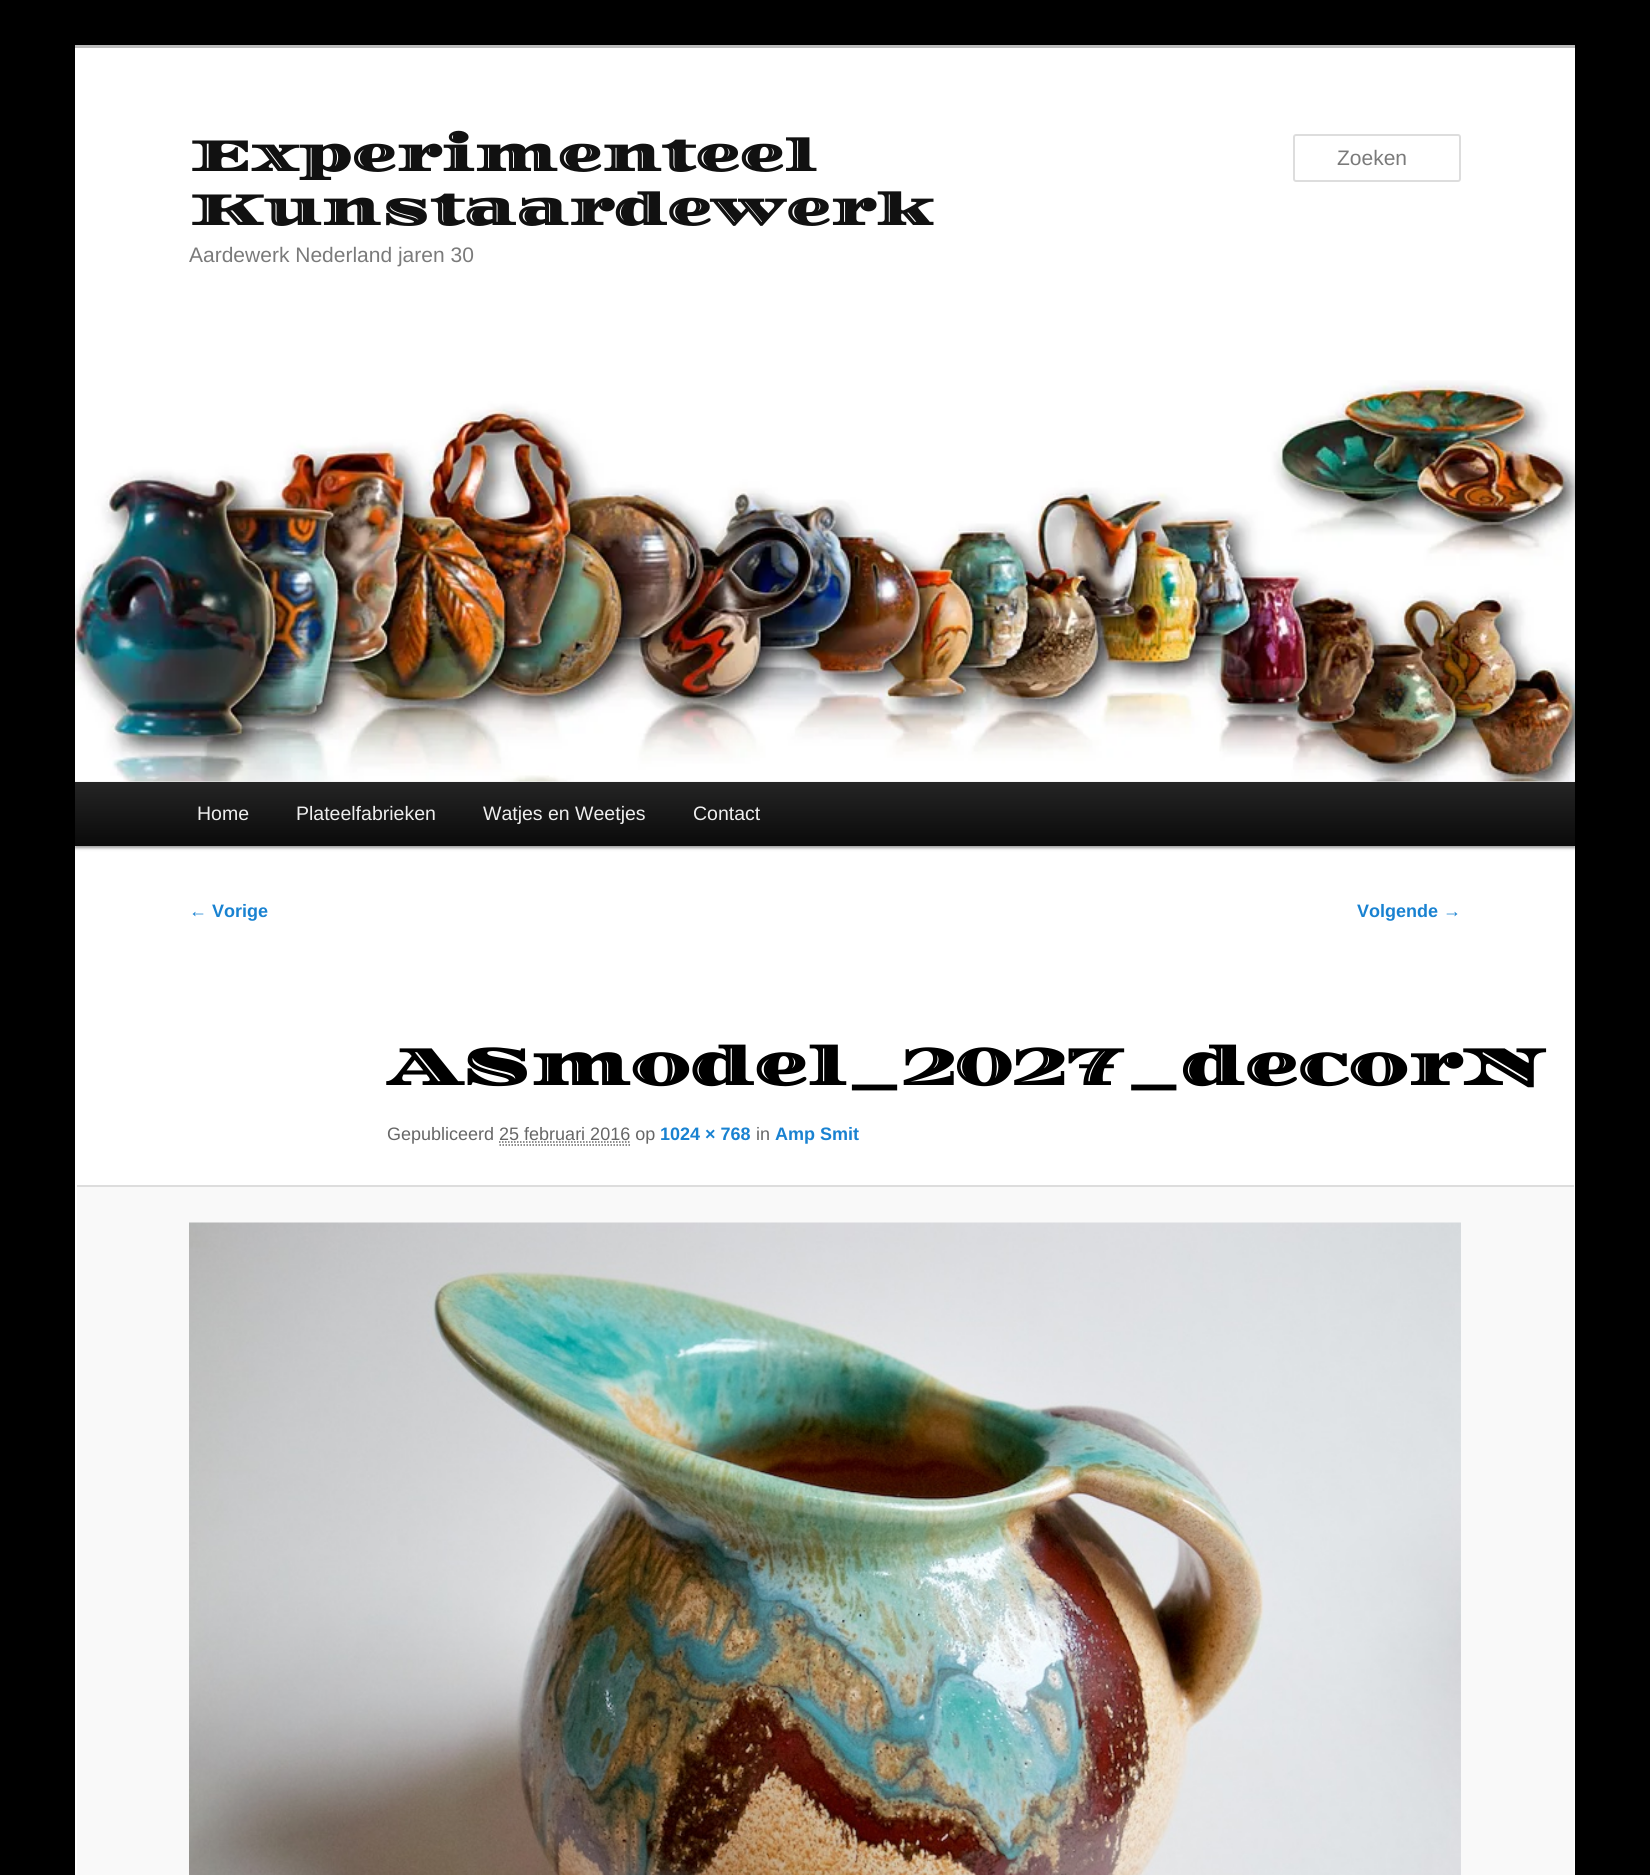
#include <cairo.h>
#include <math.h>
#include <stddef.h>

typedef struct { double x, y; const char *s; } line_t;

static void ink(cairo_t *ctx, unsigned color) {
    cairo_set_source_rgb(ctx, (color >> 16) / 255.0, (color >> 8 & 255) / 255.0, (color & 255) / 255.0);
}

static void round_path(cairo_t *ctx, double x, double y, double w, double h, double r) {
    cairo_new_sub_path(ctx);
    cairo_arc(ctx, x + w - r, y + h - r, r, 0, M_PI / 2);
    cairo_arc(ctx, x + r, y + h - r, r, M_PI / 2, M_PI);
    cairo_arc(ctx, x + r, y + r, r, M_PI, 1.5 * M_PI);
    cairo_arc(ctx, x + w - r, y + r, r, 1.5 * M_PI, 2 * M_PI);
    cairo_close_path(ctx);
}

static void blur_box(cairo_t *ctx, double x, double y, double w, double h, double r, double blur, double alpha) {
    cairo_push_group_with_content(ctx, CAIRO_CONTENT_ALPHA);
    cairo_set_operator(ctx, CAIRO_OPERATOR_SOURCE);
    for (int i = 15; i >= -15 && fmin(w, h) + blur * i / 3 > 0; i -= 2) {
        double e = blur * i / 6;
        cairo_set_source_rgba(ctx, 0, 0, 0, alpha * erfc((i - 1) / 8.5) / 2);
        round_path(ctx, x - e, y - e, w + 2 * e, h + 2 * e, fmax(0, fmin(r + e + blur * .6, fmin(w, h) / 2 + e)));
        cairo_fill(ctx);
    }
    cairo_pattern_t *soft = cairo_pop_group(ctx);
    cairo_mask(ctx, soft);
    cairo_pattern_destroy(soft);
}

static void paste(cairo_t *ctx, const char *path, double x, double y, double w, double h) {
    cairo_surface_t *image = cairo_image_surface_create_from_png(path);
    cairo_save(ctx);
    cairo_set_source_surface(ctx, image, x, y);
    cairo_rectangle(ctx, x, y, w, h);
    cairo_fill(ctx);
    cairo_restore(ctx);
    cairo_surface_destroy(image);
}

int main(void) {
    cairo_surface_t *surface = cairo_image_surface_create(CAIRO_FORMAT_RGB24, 1650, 1875);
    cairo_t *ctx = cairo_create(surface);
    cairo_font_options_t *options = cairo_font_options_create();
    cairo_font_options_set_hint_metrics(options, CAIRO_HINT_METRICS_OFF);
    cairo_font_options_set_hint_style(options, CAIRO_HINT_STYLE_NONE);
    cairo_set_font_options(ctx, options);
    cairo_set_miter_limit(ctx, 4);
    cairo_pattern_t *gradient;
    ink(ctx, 0x000000);
    cairo_paint(ctx);
    ink(ctx, 0xFFFFFF);
    cairo_rectangle(ctx, 75, 48, 1500, 1827);
    cairo_fill(ctx);
    ink(ctx, 0xBBBBBB);
    cairo_rectangle(ctx, 75, 45, 1500, 3);
    cairo_fill(ctx);
    cairo_select_font_face(ctx, "Diplomata", CAIRO_FONT_SLANT_NORMAL, CAIRO_FONT_WEIGHT_BOLD);
    cairo_set_font_size(ctx, 45);
    ink(ctx, 0x111111);
    cairo_move_to(ctx, 189, 171);
    cairo_show_text(ctx, "Experimenteel");
    cairo_move_to(ctx, 189, 225);
    cairo_show_text(ctx, "Kunstaardewerk");
    cairo_select_font_face(ctx, "Liberation Sans", CAIRO_FONT_SLANT_NORMAL, CAIRO_FONT_WEIGHT_NORMAL);
    cairo_set_font_size(ctx, 21);
    ink(ctx, 0x7A7A7A);
    cairo_move_to(ctx, 189, 262);
    cairo_show_text(ctx, "Aardewerk Nederland jaren 30");
    round_path(ctx, 1294, 135, 166, 46, 2);
    ink(ctx, 0xDDDDDD);
    cairo_stroke(ctx);
    ink(ctx, 0x7A7A7A);
    cairo_move_to(ctx, 1337, 165);
    cairo_show_text(ctx, "Zoeken");
    ink(ctx, 0x000000);
    blur_box(ctx, 75, 783, 1500, 65, 0, 1.5, 0.4);
    paste(ctx, "media/1.png", 75, 380, 1500, 402);
    gradient = cairo_pattern_create_linear(825, 781, 825, 846);
    cairo_pattern_add_color_stop_rgba(gradient, 0, 0.145, 0.145, 0.145, 1);
    cairo_pattern_add_color_stop_rgba(gradient, 1, 0.039, 0.039, 0.039, 1);
    cairo_set_source(ctx, gradient);
    cairo_pattern_destroy(gradient);
    cairo_rectangle(ctx, 75, 782, 1500, 64);
    cairo_fill(ctx);
    cairo_set_font_size(ctx, 19.5);
    ink(ctx, 0xEEEEEE);
    {
        static const line_t items[] = {
            {197, 820, "Home"},
            {296, 820, "Plateelfabrieken"},
            {483, 820, "Watjes en Weetjes"},
            {693, 820, "Contact"},
        };
        for (size_t i = 0; i < sizeof items / sizeof *items; i++) {
            cairo_move_to(ctx, items[i].x, items[i].y);
            cairo_show_text(ctx, items[i].s);
        }
    }
    cairo_select_font_face(ctx, "Liberation Sans", CAIRO_FONT_SLANT_NORMAL, CAIRO_FONT_WEIGHT_BOLD);
    cairo_set_font_size(ctx, 18);
    ink(ctx, 0x1982D1);
    cairo_move_to(ctx, 189, 917);
    cairo_show_text(ctx, "← Vorige");
    cairo_move_to(ctx, 1357, 917);
    cairo_show_text(ctx, "Volgende →");
    cairo_select_font_face(ctx, "Diplomata", CAIRO_FONT_SLANT_NORMAL, CAIRO_FONT_WEIGHT_BOLD);
    cairo_set_font_size(ctx, 54);
    ink(ctx, 0x000000);
    cairo_move_to(ctx, 387, 1085);
    cairo_show_text(ctx, "ASmodel_2027_decorN");
    cairo_select_font_face(ctx, "Liberation Sans", CAIRO_FONT_SLANT_NORMAL, CAIRO_FONT_WEIGHT_NORMAL);
    cairo_set_font_size(ctx, 18);
    ink(ctx, 0x666666);
    cairo_move_to(ctx, 387, 1140);
    cairo_show_text(ctx, "Gepubliceerd 25 februari 2016 op");
    cairo_select_font_face(ctx, "Liberation Sans", CAIRO_FONT_SLANT_NORMAL, CAIRO_FONT_WEIGHT_BOLD);
    ink(ctx, 0x1982D1);
    cairo_move_to(ctx, 660, 1140);
    cairo_show_text(ctx, "1024 × 768");
    cairo_select_font_face(ctx, "Liberation Sans", CAIRO_FONT_SLANT_NORMAL, CAIRO_FONT_WEIGHT_NORMAL);
    ink(ctx, 0x666666);
    cairo_move_to(ctx, 756, 1140);
    cairo_show_text(ctx, "in");
    cairo_select_font_face(ctx, "Liberation Sans", CAIRO_FONT_SLANT_NORMAL, CAIRO_FONT_WEIGHT_BOLD);
    ink(ctx, 0x1982D1);
    cairo_move_to(ctx, 775, 1140);
    cairo_show_text(ctx, "Amp Smit");
    cairo_new_path(ctx);
    cairo_move_to(ctx, 499, 1142);
    cairo_line_to(ctx, 630, 1142);
    ink(ctx, 0x666666);
    cairo_set_line_width(ctx, 1.5);
    cairo_set_dash(ctx, (double[]){1.5, 1.5}, 2, 0);
    cairo_stroke(ctx);
    cairo_new_path(ctx);
    cairo_move_to(ctx, 499.5, 1145);
    cairo_line_to(ctx, 630, 1145);
    cairo_stroke(ctx);
    ink(ctx, 0xF9F9F9);
    cairo_rectangle(ctx, 77, 1187, 1497, 688);
    cairo_fill(ctx);
    ink(ctx, 0xDDDDDD);
    cairo_rectangle(ctx, 77, 1185, 1497, 2);
    cairo_fill(ctx);
    paste(ctx, "media/2.png", 189, 1222, 1272, 653);
    cairo_surface_write_to_png(surface, "image.png");
    cairo_font_options_destroy(options);
    cairo_destroy(ctx);
    cairo_surface_destroy(surface);
    return 0;
}
